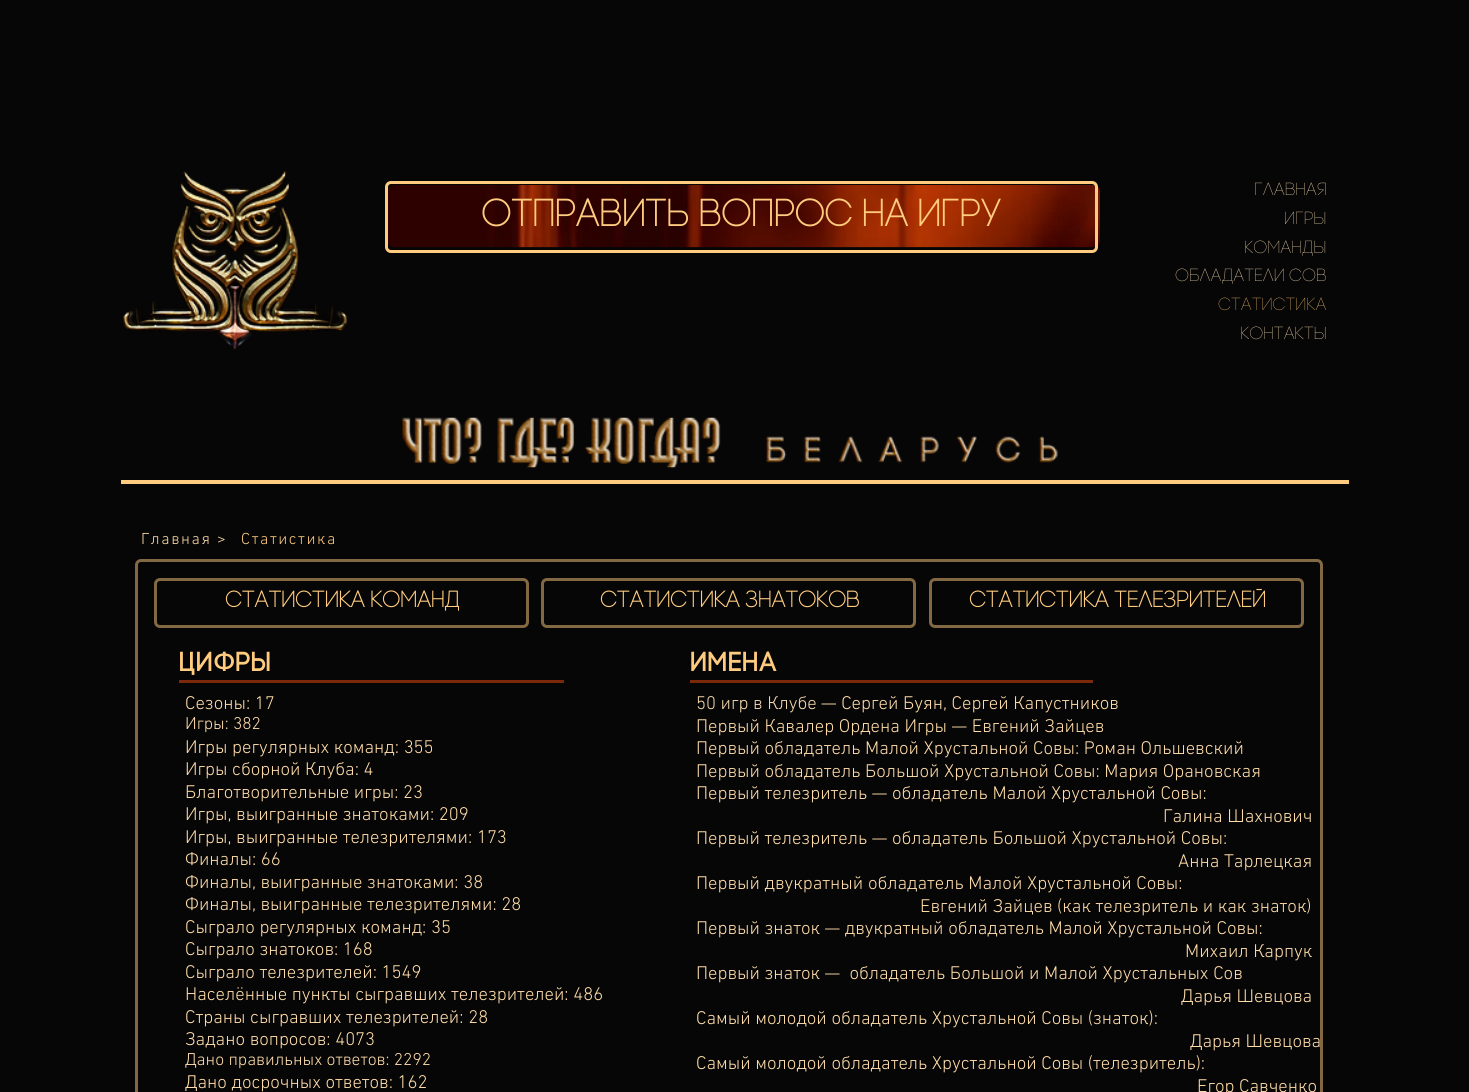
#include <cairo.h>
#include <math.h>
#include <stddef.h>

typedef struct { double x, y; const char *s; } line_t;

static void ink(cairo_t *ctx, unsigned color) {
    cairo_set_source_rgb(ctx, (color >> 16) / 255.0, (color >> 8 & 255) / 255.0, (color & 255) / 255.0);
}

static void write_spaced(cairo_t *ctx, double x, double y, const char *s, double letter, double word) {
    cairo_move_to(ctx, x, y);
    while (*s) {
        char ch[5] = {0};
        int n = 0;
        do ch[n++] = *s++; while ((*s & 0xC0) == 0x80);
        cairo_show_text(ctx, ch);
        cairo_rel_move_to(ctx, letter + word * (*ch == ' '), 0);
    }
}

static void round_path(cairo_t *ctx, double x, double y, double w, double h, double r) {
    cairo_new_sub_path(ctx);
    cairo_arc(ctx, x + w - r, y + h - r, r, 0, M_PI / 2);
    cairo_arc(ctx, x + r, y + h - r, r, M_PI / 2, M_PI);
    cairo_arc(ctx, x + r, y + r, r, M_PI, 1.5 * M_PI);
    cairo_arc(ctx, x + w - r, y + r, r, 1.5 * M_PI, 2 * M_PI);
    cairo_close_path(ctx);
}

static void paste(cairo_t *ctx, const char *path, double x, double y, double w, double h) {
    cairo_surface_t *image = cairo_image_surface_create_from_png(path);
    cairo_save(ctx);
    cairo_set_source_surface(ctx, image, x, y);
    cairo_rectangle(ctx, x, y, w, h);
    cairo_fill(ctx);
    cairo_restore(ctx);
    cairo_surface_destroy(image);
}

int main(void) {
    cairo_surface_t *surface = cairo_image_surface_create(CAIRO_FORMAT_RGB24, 1469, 1092);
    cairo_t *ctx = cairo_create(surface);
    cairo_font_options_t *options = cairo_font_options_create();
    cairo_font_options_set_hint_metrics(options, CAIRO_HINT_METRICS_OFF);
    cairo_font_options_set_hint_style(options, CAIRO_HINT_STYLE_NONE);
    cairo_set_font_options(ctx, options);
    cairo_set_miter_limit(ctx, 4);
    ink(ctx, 0x070606);
    cairo_paint(ctx);
    paste(ctx, "media/1.png", 123, 171, 225, 179);
    paste(ctx, "media/2.png", 388, 185, 712, 63);
    round_path(ctx, 386.5, 182.5, 710, 69, 4.5);
    ink(ctx, 0xFFCC7F);
    cairo_set_line_width(ctx, 3);
    cairo_stroke(ctx);
    cairo_select_font_face(ctx, "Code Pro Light", CAIRO_FONT_SLANT_NORMAL, CAIRO_FONT_WEIGHT_BOLD);
    cairo_set_font_size(ctx, 37.5);
    cairo_move_to(ctx, 481, 226);
    cairo_show_text(ctx, "ОТПРАВИТЬ ВОПРОС НА ИГРУ");
    cairo_select_font_face(ctx, "Code Pro Light Light", CAIRO_FONT_SLANT_NORMAL, CAIRO_FONT_WEIGHT_NORMAL);
    cairo_set_font_size(ctx, 17.5);
    ink(ctx, 0xF4DAB0);
    {
        static const line_t items[] = {
            {1254, 195, "Главная"},
            {1284, 224, "Игры"},
            {1244, 253, "Команды"},
            {1175, 281, "Обладатели Сов"},
        };
        for (size_t i = 0; i < sizeof items / sizeof *items; i++) {
            cairo_move_to(ctx, items[i].x, items[i].y);
            cairo_show_text(ctx, items[i].s);
        }
    }
    ink(ctx, 0xE8B768);
    cairo_move_to(ctx, 1218, 310);
    cairo_show_text(ctx, "Статистика");
    ink(ctx, 0xF4DAB0);
    cairo_move_to(ctx, 1240, 339);
    cairo_show_text(ctx, "Контакты");
    paste(ctx, "media/3.png", 402, 417, 657, 51);
    ink(ctx, 0xFFCC7F);
    cairo_rectangle(ctx, 121, 480, 1228, 4);
    cairo_fill(ctx);
    cairo_select_font_face(ctx, "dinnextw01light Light", CAIRO_FONT_SLANT_NORMAL, CAIRO_FONT_WEIGHT_NORMAL);
    cairo_set_font_size(ctx, 16.25);
    ink(ctx, 0xFFDDAA);
    write_spaced(ctx, 141, 544, "Главная >", 1.6, 0);
    ink(ctx, 0xFFCC7F);
    write_spaced(ctx, 241, 544, "Статистика", 1.6, 0);
    round_path(ctx, 136.5, 560.5, 1185, 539, 4.5);
    ink(ctx, 0x836943);
    cairo_stroke(ctx);
    round_path(ctx, 155.5, 579.5, 372, 47, 4.5);
    cairo_stroke(ctx);
    cairo_select_font_face(ctx, "Code Pro Light", CAIRO_FONT_SLANT_NORMAL, CAIRO_FONT_WEIGHT_BOLD);
    cairo_set_font_size(ctx, 22.5);
    ink(ctx, 0xFFCC7F);
    cairo_move_to(ctx, 225, 607);
    cairo_show_text(ctx, "СТАТИСТИКА КОМАНД");
    round_path(ctx, 542.5, 579.5, 372, 47, 4.5);
    ink(ctx, 0x836943);
    cairo_stroke(ctx);
    ink(ctx, 0xFFCC7F);
    cairo_move_to(ctx, 600, 607);
    cairo_show_text(ctx, "СТАТИСТИКА ЗНАТОКОВ");
    round_path(ctx, 930.5, 579.5, 372, 47, 4.5);
    ink(ctx, 0x836943);
    cairo_stroke(ctx);
    ink(ctx, 0xFFCC7F);
    cairo_move_to(ctx, 969, 607);
    cairo_show_text(ctx, "СТАТИСТИКА ТЕЛЕЗРИТЕЛЕЙ");
    cairo_select_font_face(ctx, "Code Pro", CAIRO_FONT_SLANT_NORMAL, CAIRO_FONT_WEIGHT_NORMAL);
    cairo_set_font_size(ctx, 27.5);
    cairo_move_to(ctx, 179, 671);
    cairo_show_text(ctx, "ЦИФРЫ");
    ink(ctx, 0x7C290B);
    cairo_rectangle(ctx, 179, 680, 385, 3);
    cairo_fill(ctx);
    cairo_select_font_face(ctx, "dinnextw01light Light", CAIRO_FONT_SLANT_NORMAL, CAIRO_FONT_WEIGHT_NORMAL);
    cairo_set_font_size(ctx, 18.75);
    ink(ctx, 0xFFDDAA);
    cairo_move_to(ctx, 185, 709);
    cairo_show_text(ctx, "Сезоны: 17");
    cairo_set_font_size(ctx, 17.5);
    cairo_move_to(ctx, 185, 729);
    cairo_show_text(ctx, "Игры: 382");
    cairo_set_font_size(ctx, 18.75);
    {
        static const line_t items[] = {
            {185, 753, "Игры регулярных команд: 355"},
            {185, 775, "Игры сборной Клуба: 4"},
            {185, 798, "Благотворительные игры: 23"},
            {185, 820, "Игры, выигранные знатоками: 209"},
            {185, 843, "Игры, выигранные телезрителями: 173"},
            {185, 865, "Финалы: 66"},
            {185, 888, "Финалы, выигранные знатоками: 38"},
            {185, 910, "Финалы, выигранные телезрителями: 28"},
            {185, 933, "Сыграло регулярных команд: 35"},
            {185, 955, "Сыграло знатоков: 168"},
            {185, 978, "Сыграло телезрителей: 1549"},
            {185, 1000, "Населённые пункты сыгравших телезрителей: 486"},
            {185, 1023, "Страны сыгравших телезрителей: 28"},
            {185, 1045, "Задано вопросов: 4073"},
        };
        for (size_t i = 0; i < sizeof items / sizeof *items; i++) {
            cairo_move_to(ctx, items[i].x, items[i].y);
            cairo_show_text(ctx, items[i].s);
        }
    }
    cairo_set_font_size(ctx, 17.5);
    cairo_move_to(ctx, 185, 1065);
    cairo_show_text(ctx, "Дано правильных ответов: 2292");
    cairo_set_font_size(ctx, 18.75);
    cairo_move_to(ctx, 185, 1088);
    cairo_show_text(ctx, "Дано досрочных ответов: 162");
    cairo_select_font_face(ctx, "Code Pro", CAIRO_FONT_SLANT_NORMAL, CAIRO_FONT_WEIGHT_NORMAL);
    cairo_set_font_size(ctx, 27.5);
    ink(ctx, 0xFFCC7F);
    cairo_move_to(ctx, 690, 671);
    cairo_show_text(ctx, "ИМЕНА");
    ink(ctx, 0x7C290B);
    cairo_rectangle(ctx, 690, 680, 403, 3);
    cairo_fill(ctx);
    cairo_select_font_face(ctx, "dinnextw01light Light", CAIRO_FONT_SLANT_NORMAL, CAIRO_FONT_WEIGHT_NORMAL);
    cairo_set_font_size(ctx, 18.75);
    ink(ctx, 0xF4DAB0);
    cairo_move_to(ctx, 696, 709);
    cairo_show_text(ctx, "50 игр в Клубе");
    ink(ctx, 0xFFDDAA);
    {
        static const line_t items[] = {
            {821, 709, "— Сергей Буян, Сергей Капустников"},
            {696, 732, "Первый Кавалер Ордена Игры — Евгений Зайцев"},
            {696, 754, "Первый обладатель Малой Хрустальной Совы: Роман Ольшевский"},
            {696, 777, "Первый обладатель Большой Хрустальной Совы: Мария Орановская"},
            {696, 799, "Первый телезритель — обладатель Малой Хрустальной Совы:"},
            {1163, 822, "Галина Шахнович"},
            {696, 844, "Первый телезритель — обладатель Большой Хрустальной Совы:"},
            {1178, 867, "Анна Тарлецкая"},
            {696, 889, "Первый двукратный обладатель Малой Хрустальной Совы:"},
            {920, 912, "Евгений Зайцев (как телезритель и как знаток)"},
            {696, 934, "Первый знаток — двукратный обладатель Малой Хрустальной Совы:"},
            {1185, 957, "Михаил Карпук"},
            {696, 979, "Первый знаток —  обладатель Большой и Малой Хрустальных Сов"},
            {1181, 1002, "Дарья Шевцова"},
            {696, 1024, "Самый молодой обладатель Хрустальной Совы (знаток):"},
            {1190, 1047, "Дарья Шевцова"},
            {696, 1069, "Самый молодой обладатель Хрустальной Совы (телезритель):"},
            {1197, 1092, "Егор Савченко"},
        };
        for (size_t i = 0; i < sizeof items / sizeof *items; i++) {
            cairo_move_to(ctx, items[i].x, items[i].y);
            cairo_show_text(ctx, items[i].s);
        }
    }
    cairo_surface_write_to_png(surface, "image.png");
    cairo_font_options_destroy(options);
    cairo_destroy(ctx);
    cairo_surface_destroy(surface);
    return 0;
}
